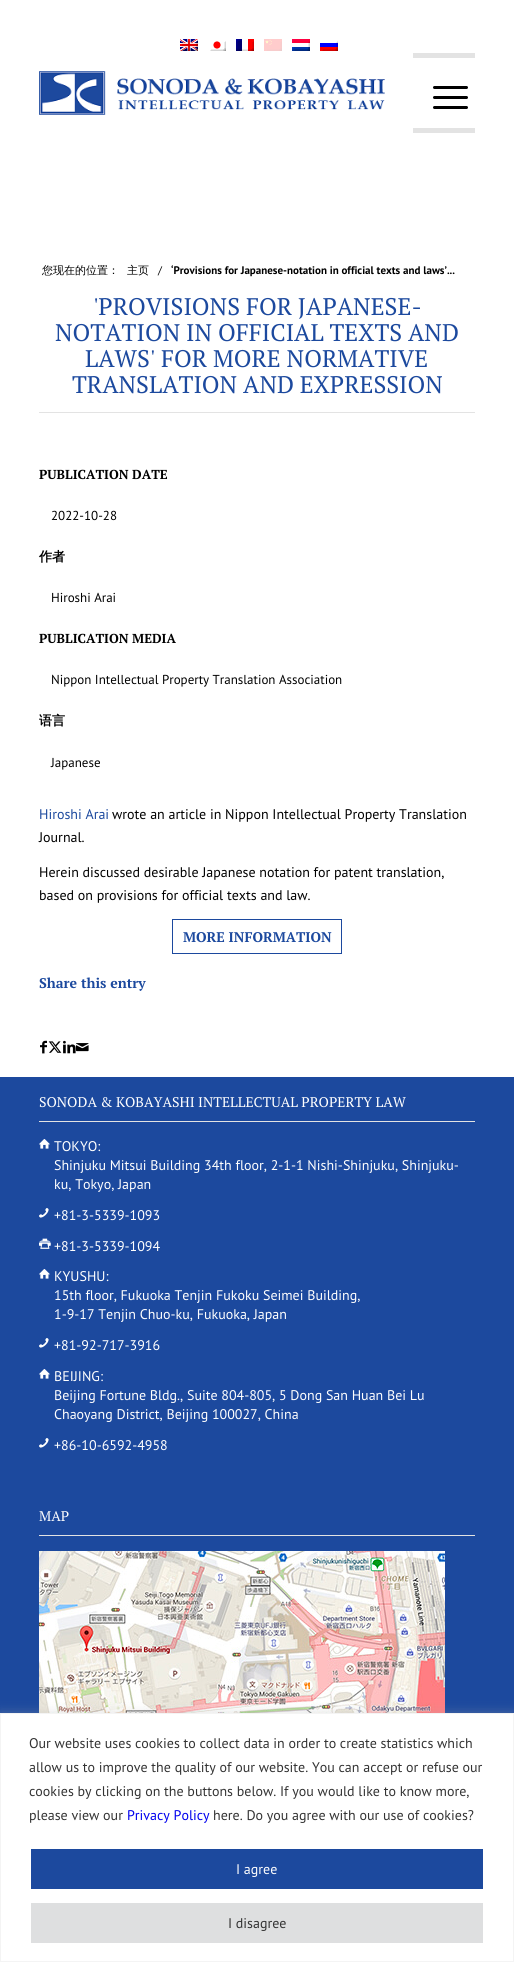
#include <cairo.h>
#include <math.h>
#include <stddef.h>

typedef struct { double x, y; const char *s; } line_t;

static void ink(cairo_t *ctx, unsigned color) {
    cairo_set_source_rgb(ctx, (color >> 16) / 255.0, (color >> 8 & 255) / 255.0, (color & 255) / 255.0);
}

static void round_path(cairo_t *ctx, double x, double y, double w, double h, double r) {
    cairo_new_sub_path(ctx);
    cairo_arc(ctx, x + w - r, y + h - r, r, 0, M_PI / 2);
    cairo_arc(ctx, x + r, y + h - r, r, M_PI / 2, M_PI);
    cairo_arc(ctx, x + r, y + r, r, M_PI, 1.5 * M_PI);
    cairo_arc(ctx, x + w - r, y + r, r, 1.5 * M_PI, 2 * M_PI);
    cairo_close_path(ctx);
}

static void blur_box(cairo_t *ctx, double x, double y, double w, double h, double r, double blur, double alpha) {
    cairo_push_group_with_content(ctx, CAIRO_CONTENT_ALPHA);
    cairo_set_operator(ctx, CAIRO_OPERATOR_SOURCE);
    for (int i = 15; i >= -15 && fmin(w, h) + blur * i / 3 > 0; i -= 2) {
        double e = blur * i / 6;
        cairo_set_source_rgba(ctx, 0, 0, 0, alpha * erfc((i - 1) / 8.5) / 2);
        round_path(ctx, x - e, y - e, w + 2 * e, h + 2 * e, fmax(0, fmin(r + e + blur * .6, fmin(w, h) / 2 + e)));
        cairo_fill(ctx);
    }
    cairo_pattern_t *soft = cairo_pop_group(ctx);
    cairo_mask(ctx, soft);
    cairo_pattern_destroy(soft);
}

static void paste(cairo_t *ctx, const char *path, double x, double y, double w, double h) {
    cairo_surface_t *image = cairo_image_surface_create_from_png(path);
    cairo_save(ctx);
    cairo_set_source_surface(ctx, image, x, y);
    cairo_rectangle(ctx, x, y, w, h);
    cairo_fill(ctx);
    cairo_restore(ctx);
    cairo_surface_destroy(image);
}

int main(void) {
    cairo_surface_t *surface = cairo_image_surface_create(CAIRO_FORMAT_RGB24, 514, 1962);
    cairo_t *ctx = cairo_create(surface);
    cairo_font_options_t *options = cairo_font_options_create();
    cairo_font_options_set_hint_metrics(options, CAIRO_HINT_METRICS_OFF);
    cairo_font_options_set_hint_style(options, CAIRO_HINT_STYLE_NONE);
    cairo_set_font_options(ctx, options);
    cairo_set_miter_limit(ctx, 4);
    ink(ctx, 0xFFFFFF);
    cairo_paint(ctx);
    paste(ctx, "media/1.png", 180, 39, 18, 12);
    paste(ctx, "media/2.png", 210, 41, 16, 10);
    paste(ctx, "media/3.png", 236, 39, 18, 12);
    paste(ctx, "media/4.png", 264, 39, 18, 12);
    paste(ctx, "media/5.png", 292, 39, 18, 12);
    paste(ctx, "media/6.png", 320, 41, 18, 10);
    paste(ctx, "media/7.png", 39, 71, 346, 44);
    ink(ctx, 0xE3E3E3);
    cairo_rectangle(ctx, 413, 53, 62, 5);
    cairo_fill(ctx);
    cairo_rectangle(ctx, 413, 128, 62, 5);
    cairo_fill(ctx);
    ink(ctx, 0x000000);
    round_path(ctx, 433, 96, 35, 3, 1.5);
    cairo_fill(ctx);
    round_path(ctx, 433, 86, 35, 3, 1.5);
    cairo_fill(ctx);
    round_path(ctx, 433, 106, 35, 3, 1.5);
    cairo_fill(ctx);
    cairo_select_font_face(ctx, "WenQuanYi Zen Hei Medium", CAIRO_FONT_SLANT_NORMAL, CAIRO_FONT_WEIGHT_NORMAL);
    cairo_set_font_size(ctx, 11);
    cairo_move_to(ctx, 42, 274);
    cairo_show_text(ctx, "您现在的位置：");
    cairo_move_to(ctx, 127, 274);
    cairo_show_text(ctx, "主页");
    cairo_select_font_face(ctx, "PT Sans", CAIRO_FONT_SLANT_NORMAL, CAIRO_FONT_WEIGHT_NORMAL);
    cairo_move_to(ctx, 158, 274);
    cairo_show_text(ctx, "/");
    cairo_select_font_face(ctx, "PT Sans", CAIRO_FONT_SLANT_NORMAL, CAIRO_FONT_WEIGHT_BOLD);
    cairo_move_to(ctx, 171, 274);
    cairo_show_text(ctx, "‘Provisions for Japanese-notation in official texts and laws’...");
    ink(ctx, 0xE3E3E3);
    cairo_rectangle(ctx, 39, 412, 436, 1);
    cairo_fill(ctx);
    cairo_select_font_face(ctx, "PT Serif", CAIRO_FONT_SLANT_NORMAL, CAIRO_FONT_WEIGHT_NORMAL);
    cairo_set_font_size(ctx, 24);
    ink(ctx, 0x1C499E);
    {
        static const line_t items[] = {
            {93, 315, "'PROVISIONS FOR JAPANESE-"},
            {55, 341, "NOTATION IN OFFICIAL TEXTS AND"},
            {85, 367, "LAWS' FOR MORE NORMATIVE"},
            {72, 393, "TRANSLATION AND EXPRESSION"},
        };
        for (size_t i = 0; i < sizeof items / sizeof *items; i++) {
            cairo_move_to(ctx, items[i].x, items[i].y);
            cairo_show_text(ctx, items[i].s);
        }
    }
    cairo_select_font_face(ctx, "PT Serif", CAIRO_FONT_SLANT_NORMAL, CAIRO_FONT_WEIGHT_BOLD);
    cairo_set_font_size(ctx, 13);
    ink(ctx, 0x000000);
    cairo_move_to(ctx, 39, 479);
    cairo_show_text(ctx, "PUBLICATION DATE");
    cairo_select_font_face(ctx, "PT Sans", CAIRO_FONT_SLANT_NORMAL, CAIRO_FONT_WEIGHT_NORMAL);
    cairo_move_to(ctx, 51, 520);
    cairo_show_text(ctx, "2022-10-28");
    cairo_select_font_face(ctx, "WenQuanYi Zen Hei", CAIRO_FONT_SLANT_NORMAL, CAIRO_FONT_WEIGHT_BOLD);
    cairo_move_to(ctx, 39, 561);
    cairo_show_text(ctx, "作者");
    cairo_select_font_face(ctx, "PT Sans", CAIRO_FONT_SLANT_NORMAL, CAIRO_FONT_WEIGHT_NORMAL);
    cairo_move_to(ctx, 51, 602);
    cairo_show_text(ctx, "Hiroshi Arai");
    cairo_select_font_face(ctx, "PT Serif", CAIRO_FONT_SLANT_NORMAL, CAIRO_FONT_WEIGHT_BOLD);
    cairo_move_to(ctx, 39, 643);
    cairo_show_text(ctx, "PUBLICATION MEDIA");
    cairo_select_font_face(ctx, "PT Sans", CAIRO_FONT_SLANT_NORMAL, CAIRO_FONT_WEIGHT_NORMAL);
    cairo_move_to(ctx, 51, 684);
    cairo_show_text(ctx, "Nippon Intellectual Property Translation Association");
    cairo_select_font_face(ctx, "WenQuanYi Zen Hei", CAIRO_FONT_SLANT_NORMAL, CAIRO_FONT_WEIGHT_BOLD);
    cairo_move_to(ctx, 39, 725);
    cairo_show_text(ctx, "语言");
    cairo_select_font_face(ctx, "PT Sans", CAIRO_FONT_SLANT_NORMAL, CAIRO_FONT_WEIGHT_NORMAL);
    cairo_move_to(ctx, 51, 767);
    cairo_show_text(ctx, "Japanese");
    cairo_set_font_size(ctx, 14);
    ink(ctx, 0x1C499E);
    cairo_move_to(ctx, 39, 819);
    cairo_show_text(ctx, "Hiroshi Arai");
    ink(ctx, 0x000000);
    {
        static const line_t items[] = {
            {112, 819, "wrote an article in Nippon Intellectual Property Translation"},
            {39, 842, "Journal."},
            {39, 877, "Herein discussed desirable Japanese notation for patent translation,"},
            {39, 900, "based on provisions for official texts and law."},
        };
        for (size_t i = 0; i < sizeof items / sizeof *items; i++) {
            cairo_move_to(ctx, items[i].x, items[i].y);
            cairo_show_text(ctx, items[i].s);
        }
    }
    cairo_rectangle(ctx, 172.5, 919.5, 169, 34);
    ink(ctx, 0x1C499E);
    cairo_set_line_width(ctx, 1);
    cairo_stroke(ctx);
    cairo_select_font_face(ctx, "PT Serif", CAIRO_FONT_SLANT_NORMAL, CAIRO_FONT_WEIGHT_BOLD);
    cairo_move_to(ctx, 183, 942);
    cairo_show_text(ctx, "MORE INFORMATION");
    cairo_move_to(ctx, 39, 988);
    cairo_show_text(ctx, "Share this entry");
    paste(ctx, "media/8.png", 40, 1040, 7, 14);
    paste(ctx, "media/9.png", 48, 1041, 14, 12);
    paste(ctx, "media/10.png", 63, 1040, 13, 14);
    paste(ctx, "media/11.png", 76, 1043, 13, 9);
    cairo_rectangle(ctx, 0, 1077, 514, 636);
    cairo_fill(ctx);
    ink(ctx, 0xE3E3E3);
    cairo_rectangle(ctx, 39, 1121, 436, 1);
    cairo_fill(ctx);
    cairo_select_font_face(ctx, "PT Serif", CAIRO_FONT_SLANT_NORMAL, CAIRO_FONT_WEIGHT_NORMAL);
    ink(ctx, 0xFFFFFF);
    cairo_move_to(ctx, 39, 1107);
    cairo_show_text(ctx, "SONODA & KOBAYASHI INTELLECTUAL PROPERTY LAW");
    paste(ctx, "media/12.png", 39, 1139, 11, 10);
    cairo_select_font_face(ctx, "PT Sans", CAIRO_FONT_SLANT_NORMAL, CAIRO_FONT_WEIGHT_NORMAL);
    {
        static const line_t items[] = {
            {54, 1151, "TOKYO:"},
            {54, 1170, "Shinjuku Mitsui Building 34th floor, 2-1-1 Nishi-Shinjuku, Shinjuku-"},
            {54, 1189, "ku, Tokyo, Japan"},
        };
        for (size_t i = 0; i < sizeof items / sizeof *items; i++) {
            cairo_move_to(ctx, items[i].x, items[i].y);
            cairo_show_text(ctx, items[i].s);
        }
    }
    paste(ctx, "media/13.png", 39, 1208, 10, 10);
    cairo_move_to(ctx, 54, 1220);
    cairo_show_text(ctx, "+81-3-5339-1093");
    paste(ctx, "media/14.png", 39, 1238, 12, 11);
    cairo_move_to(ctx, 54, 1251);
    cairo_show_text(ctx, "+81-3-5339-1094");
    paste(ctx, "media/12.png", 39, 1269, 11, 10);
    {
        static const line_t items[] = {
            {54, 1281, "KYUSHU:"},
            {54, 1300, "15th floor, Fukuoka Tenjin Fukoku Seimei Building,"},
            {54, 1319, "1-9-17 Tenjin Chuo-ku, Fukuoka, Japan"},
        };
        for (size_t i = 0; i < sizeof items / sizeof *items; i++) {
            cairo_move_to(ctx, items[i].x, items[i].y);
            cairo_show_text(ctx, items[i].s);
        }
    }
    paste(ctx, "media/13.png", 39, 1338, 10, 10);
    cairo_move_to(ctx, 54, 1350);
    cairo_show_text(ctx, "+81-92-717-3916");
    paste(ctx, "media/12.png", 39, 1369, 11, 10);
    {
        static const line_t items[] = {
            {54, 1381, "BEIJING:"},
            {54, 1400, "Beijing Fortune Bldg., Suite 804-805, 5 Dong San Huan Bei Lu"},
            {54, 1419, "Chaoyang District, Beijing 100027, China"},
        };
        for (size_t i = 0; i < sizeof items / sizeof *items; i++) {
            cairo_move_to(ctx, items[i].x, items[i].y);
            cairo_show_text(ctx, items[i].s);
        }
    }
    paste(ctx, "media/13.png", 39, 1438, 10, 10);
    cairo_move_to(ctx, 54, 1450);
    cairo_show_text(ctx, "+86-10-6592-4958");
    ink(ctx, 0xE3E3E3);
    cairo_rectangle(ctx, 39, 1535, 436, 1);
    cairo_fill(ctx);
    cairo_select_font_face(ctx, "PT Serif", CAIRO_FONT_SLANT_NORMAL, CAIRO_FONT_WEIGHT_NORMAL);
    ink(ctx, 0xFFFFFF);
    cairo_move_to(ctx, 39, 1521);
    cairo_show_text(ctx, "MAP");
    paste(ctx, "media/15.png", 39, 1551, 406, 162);
    ink(ctx, 0xACABAB);
    blur_box(ctx, 0, 1712, 514, 249, 0, 5, 0.3);
    ink(ctx, 0xFFFFFF);
    cairo_rectangle(ctx, 0.5, 1713.5, 513, 248);
    cairo_fill_preserve(ctx);
    ink(ctx, 0xF4F4F4);
    cairo_stroke(ctx);
    cairo_select_font_face(ctx, "PT Sans", CAIRO_FONT_SLANT_NORMAL, CAIRO_FONT_WEIGHT_NORMAL);
    ink(ctx, 0x333333);
    {
        static const line_t items[] = {
            {29, 1748, "Our website uses cookies to collect data in order to create statistics which"},
            {29, 1772, "allow us to improve the quality of our website. You can accept or refuse our"},
            {29, 1796, "cookies by clicking on the buttons below. If you would like to know more,"},
            {29, 1820, "please view our"},
        };
        for (size_t i = 0; i < sizeof items / sizeof *items; i++) {
            cairo_move_to(ctx, items[i].x, items[i].y);
            cairo_show_text(ctx, items[i].s);
        }
    }
    ink(ctx, 0x0000EE);
    cairo_move_to(ctx, 127, 1820);
    cairo_show_text(ctx, "Privacy Policy");
    ink(ctx, 0x333333);
    cairo_move_to(ctx, 213, 1820);
    cairo_show_text(ctx, "here. Do you agree with our use of cookies?");
    ink(ctx, 0x1C499E);
    round_path(ctx, 30, 1848, 454, 42, 1);
    cairo_fill_preserve(ctx);
    ink(ctx, 0xFFFFFF);
    cairo_set_line_width(ctx, 2);
    cairo_stroke(ctx);
    cairo_move_to(ctx, 236, 1874);
    cairo_show_text(ctx, "I agree");
    ink(ctx, 0xDEDFE0);
    round_path(ctx, 30, 1902, 454, 42, 1);
    cairo_fill_preserve(ctx);
    ink(ctx, 0xFFFFFF);
    cairo_stroke(ctx);
    ink(ctx, 0x333333);
    cairo_move_to(ctx, 228, 1928);
    cairo_show_text(ctx, "I disagree");
    cairo_surface_write_to_png(surface, "image.png");
    cairo_font_options_destroy(options);
    cairo_destroy(ctx);
    cairo_surface_destroy(surface);
    return 0;
}
